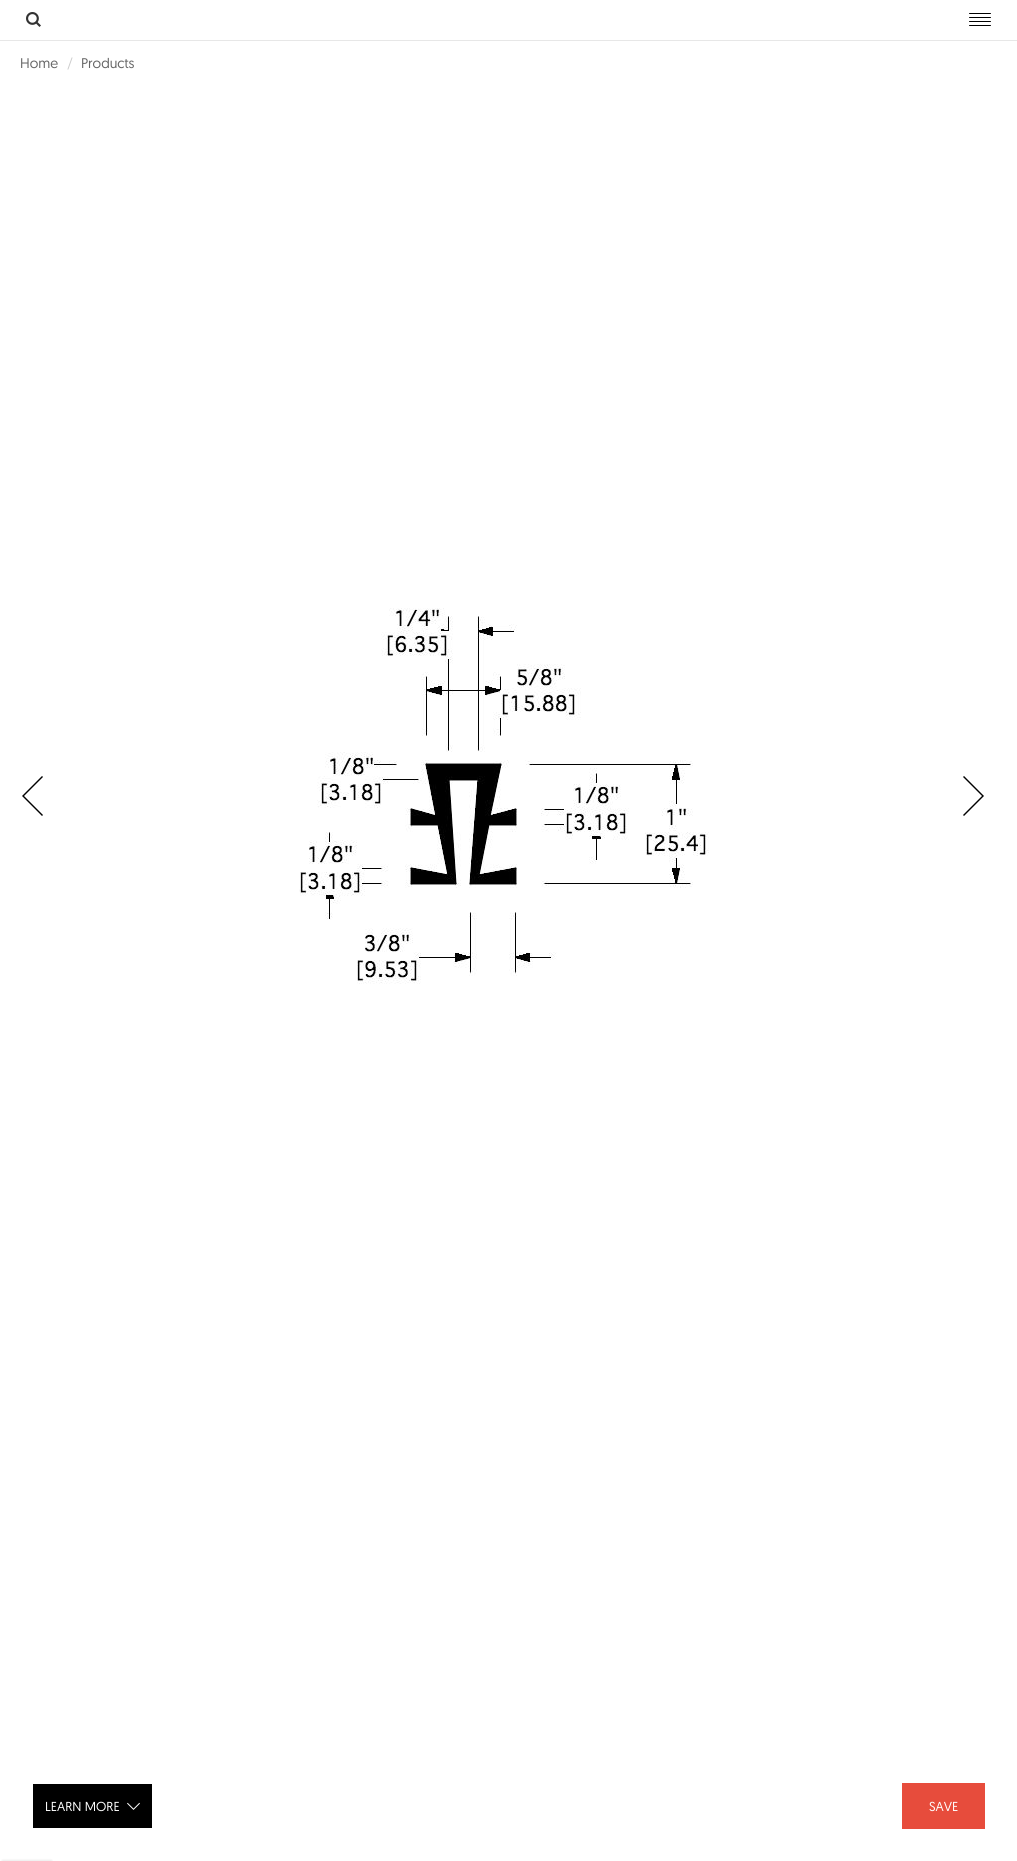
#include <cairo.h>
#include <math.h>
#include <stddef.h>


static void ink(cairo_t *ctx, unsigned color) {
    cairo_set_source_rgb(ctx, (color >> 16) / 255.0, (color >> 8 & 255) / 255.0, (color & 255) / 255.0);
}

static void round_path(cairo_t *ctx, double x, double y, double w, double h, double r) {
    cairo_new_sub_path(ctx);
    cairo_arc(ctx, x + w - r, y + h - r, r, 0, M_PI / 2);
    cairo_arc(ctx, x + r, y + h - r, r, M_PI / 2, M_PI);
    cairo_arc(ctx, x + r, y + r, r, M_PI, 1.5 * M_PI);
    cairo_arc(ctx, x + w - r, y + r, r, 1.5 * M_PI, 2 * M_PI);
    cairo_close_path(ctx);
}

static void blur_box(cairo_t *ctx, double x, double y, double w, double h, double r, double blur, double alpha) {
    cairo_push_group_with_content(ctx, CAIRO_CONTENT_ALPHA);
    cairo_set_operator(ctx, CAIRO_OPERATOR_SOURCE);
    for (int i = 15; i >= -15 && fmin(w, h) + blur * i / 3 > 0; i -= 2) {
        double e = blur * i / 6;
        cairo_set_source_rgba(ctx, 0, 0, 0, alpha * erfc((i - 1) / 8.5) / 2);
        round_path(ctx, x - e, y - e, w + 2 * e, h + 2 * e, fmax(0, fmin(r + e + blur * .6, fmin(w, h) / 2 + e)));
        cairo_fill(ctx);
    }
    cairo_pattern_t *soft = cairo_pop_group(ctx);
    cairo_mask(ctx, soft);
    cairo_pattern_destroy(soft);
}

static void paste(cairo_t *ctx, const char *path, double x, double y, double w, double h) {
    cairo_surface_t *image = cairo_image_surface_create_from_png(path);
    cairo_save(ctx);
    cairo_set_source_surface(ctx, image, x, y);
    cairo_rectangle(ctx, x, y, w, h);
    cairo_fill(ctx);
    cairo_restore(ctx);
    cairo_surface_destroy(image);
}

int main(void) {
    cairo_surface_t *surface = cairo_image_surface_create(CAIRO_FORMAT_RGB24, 1017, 1861);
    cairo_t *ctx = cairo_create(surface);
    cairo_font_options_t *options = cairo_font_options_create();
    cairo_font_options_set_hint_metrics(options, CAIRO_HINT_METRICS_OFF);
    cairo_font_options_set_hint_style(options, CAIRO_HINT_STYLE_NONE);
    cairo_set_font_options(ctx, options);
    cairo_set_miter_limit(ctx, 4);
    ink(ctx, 0xFFFFFF);
    cairo_paint(ctx);
    ink(ctx, 0xE7E7E7);
    cairo_rectangle(ctx, 0, 40, 1017, 1);
    cairo_fill(ctx);
    paste(ctx, "media/1.png", 26, 12, 15, 15);
    ink(ctx, 0x000000);
    round_path(ctx, 969, 13, 22, 1, 0.5);
    cairo_fill(ctx);
    round_path(ctx, 969, 17, 22, 1, 0.5);
    cairo_fill(ctx);
    round_path(ctx, 969, 21, 22, 1, 0.5);
    cairo_fill(ctx);
    round_path(ctx, 969, 25, 22, 1, 0.5);
    cairo_fill(ctx);
    cairo_select_font_face(ctx, "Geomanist", CAIRO_FONT_SLANT_NORMAL, CAIRO_FONT_WEIGHT_NORMAL);
    cairo_set_font_size(ctx, 14);
    ink(ctx, 0x666666);
    cairo_move_to(ctx, 20, 68);
    cairo_show_text(ctx, "Home");
    ink(ctx, 0xCCCCCC);
    cairo_move_to(ctx, 67, 68);
    cairo_show_text(ctx, "/");
    ink(ctx, 0x666666);
    cairo_move_to(ctx, 81, 68);
    cairo_show_text(ctx, "Products");
    ink(ctx, 0x000000);
    cairo_new_path(ctx);
    cairo_move_to(ctx, 22, 796);
    cairo_line_to(ctx, 42, 776);
    cairo_line_to(ctx, 43, 777);
    cairo_line_to(ctx, 24, 796);
    cairo_line_to(ctx, 43, 815);
    cairo_line_to(ctx, 42, 816);
    cairo_close_path(ctx);
    cairo_fill(ctx);
    paste(ctx, "media/2.png", 299, 608, 410, 376);
    cairo_new_path(ctx);
    cairo_move_to(ctx, 964, 776);
    cairo_line_to(ctx, 984, 796);
    cairo_line_to(ctx, 964, 816);
    cairo_line_to(ctx, 963, 815);
    cairo_line_to(ctx, 982, 796);
    cairo_line_to(ctx, 963, 777);
    cairo_close_path(ctx);
    cairo_fill(ctx);
    cairo_rectangle(ctx, 33, 1784, 119, 44);
    cairo_fill(ctx);
    cairo_set_font_size(ctx, 13);
    ink(ctx, 0xFFFFFF);
    cairo_move_to(ctx, 45, 1811);
    cairo_show_text(ctx, "LEARN MORE");
    paste(ctx, "media/3.png", 127, 1802, 13, 8);
    ink(ctx, 0xE74C3C);
    cairo_rectangle(ctx, 902, 1783, 83, 46);
    cairo_fill(ctx);
    ink(ctx, 0xFFFFFF);
    cairo_move_to(ctx, 929, 1811);
    cairo_show_text(ctx, "SAVE");
    ink(ctx, 0x000000);
    blur_box(ctx, 2, 1860, 50, 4, 0, 1, 0.08);
    cairo_surface_write_to_png(surface, "image.png");
    cairo_font_options_destroy(options);
    cairo_destroy(ctx);
    cairo_surface_destroy(surface);
    return 0;
}
